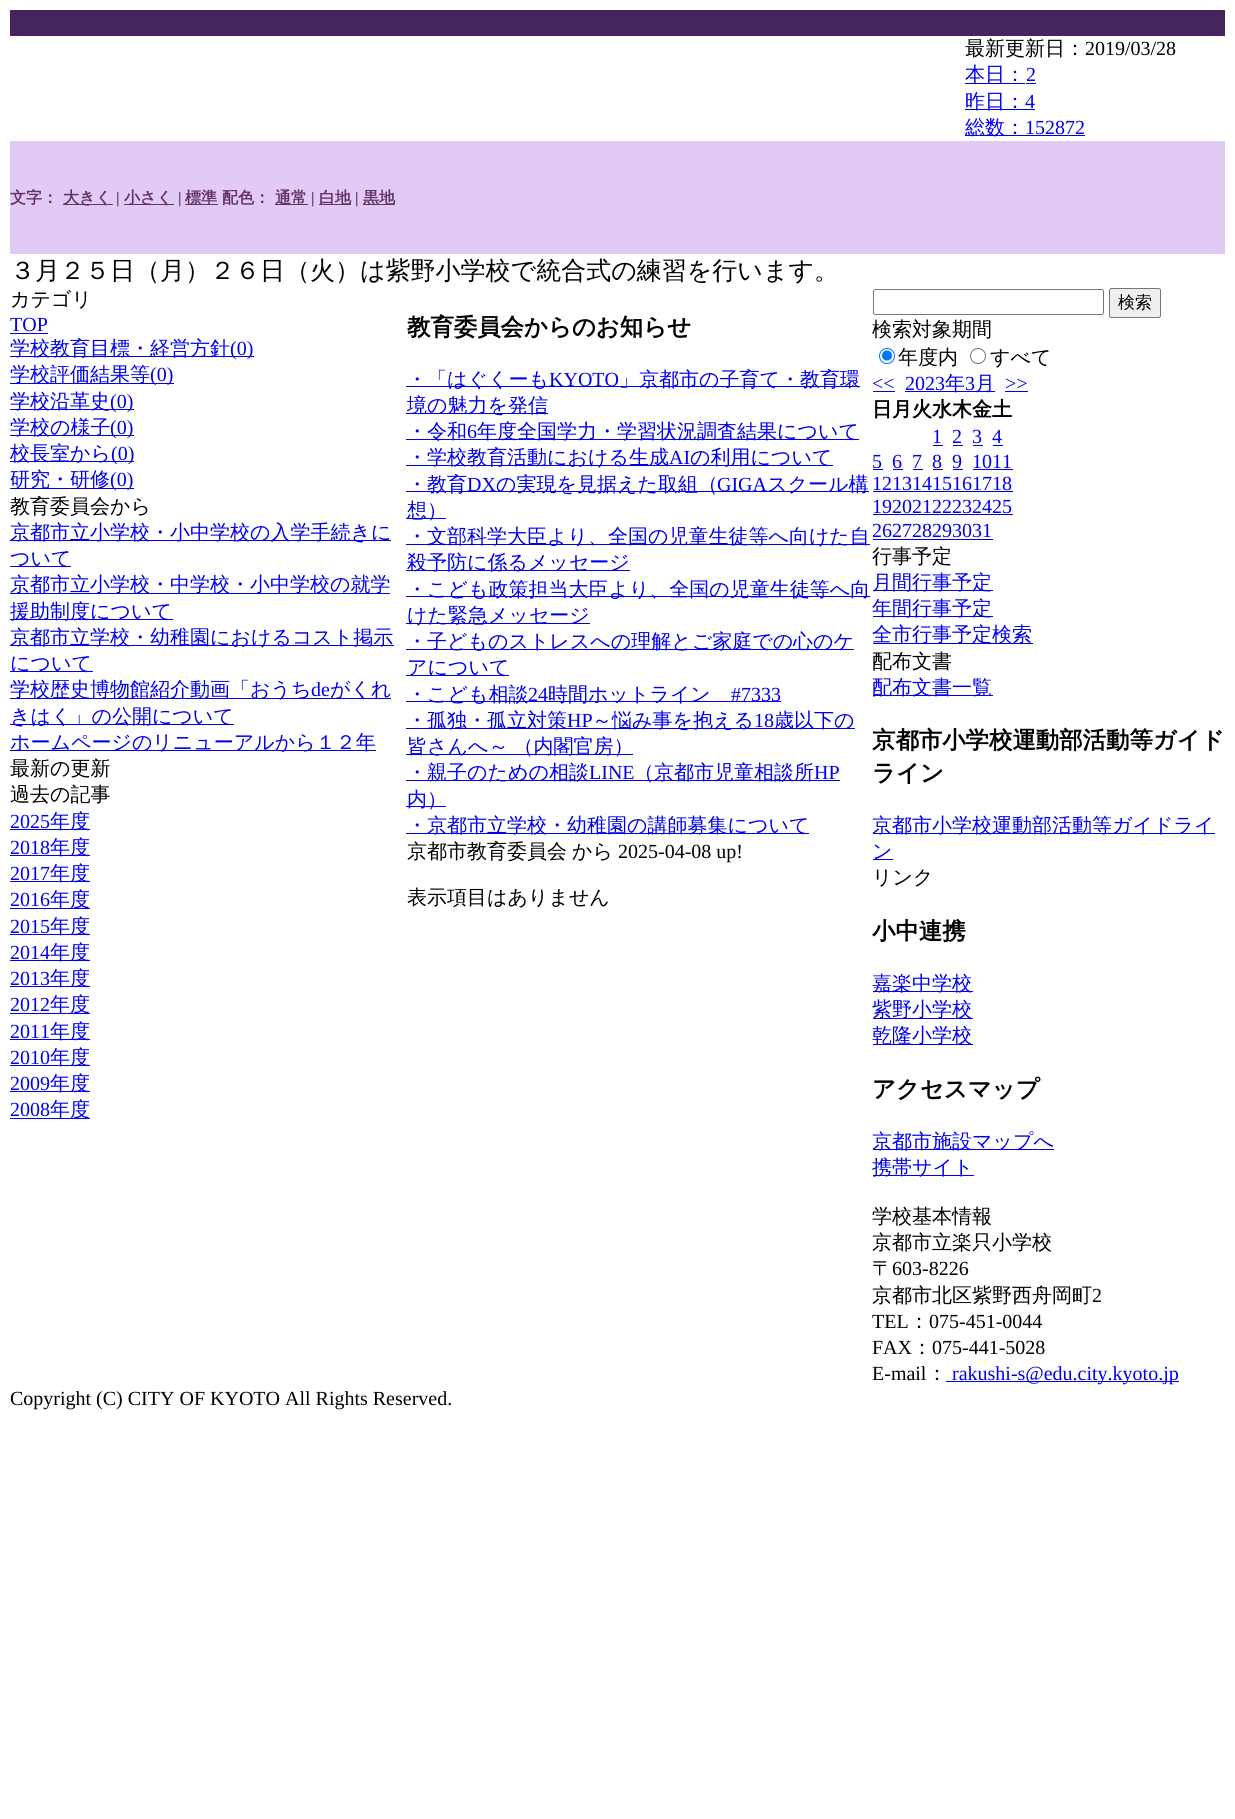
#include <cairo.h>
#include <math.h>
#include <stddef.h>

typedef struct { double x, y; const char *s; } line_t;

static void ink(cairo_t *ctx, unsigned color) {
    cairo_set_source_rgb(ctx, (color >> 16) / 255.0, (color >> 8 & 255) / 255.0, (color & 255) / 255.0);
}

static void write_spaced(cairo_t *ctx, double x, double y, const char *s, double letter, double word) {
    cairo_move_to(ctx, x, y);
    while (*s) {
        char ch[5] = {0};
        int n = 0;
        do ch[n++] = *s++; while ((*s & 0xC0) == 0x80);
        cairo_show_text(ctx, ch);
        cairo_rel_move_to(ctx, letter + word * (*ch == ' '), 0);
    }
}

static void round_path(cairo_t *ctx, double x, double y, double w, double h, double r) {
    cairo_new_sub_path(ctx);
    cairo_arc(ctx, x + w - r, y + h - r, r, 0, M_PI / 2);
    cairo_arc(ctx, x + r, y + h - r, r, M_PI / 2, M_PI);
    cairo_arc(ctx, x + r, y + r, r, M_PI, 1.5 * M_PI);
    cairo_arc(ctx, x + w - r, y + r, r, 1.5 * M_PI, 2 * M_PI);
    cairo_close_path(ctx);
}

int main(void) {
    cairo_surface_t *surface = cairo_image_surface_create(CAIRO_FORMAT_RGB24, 1235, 1819);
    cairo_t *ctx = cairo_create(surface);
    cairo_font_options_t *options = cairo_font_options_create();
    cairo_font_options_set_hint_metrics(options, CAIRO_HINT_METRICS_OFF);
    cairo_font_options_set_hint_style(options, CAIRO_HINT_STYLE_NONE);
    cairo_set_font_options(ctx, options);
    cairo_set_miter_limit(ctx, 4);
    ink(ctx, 0xFFFFFF);
    cairo_paint(ctx);
    ink(ctx, 0x46255E);
    cairo_rectangle(ctx, 10, 10, 1215, 26);
    cairo_fill(ctx);
    cairo_select_font_face(ctx, "WenQuanYi Zen Hei Medium", CAIRO_FONT_SLANT_NORMAL, CAIRO_FONT_WEIGHT_NORMAL);
    cairo_set_font_size(ctx, 20);
    ink(ctx, 0x000000);
    cairo_move_to(ctx, 965, 55);
    cairo_show_text(ctx, "最新更新日：");
    cairo_select_font_face(ctx, "Liberation Serif", CAIRO_FONT_SLANT_NORMAL, CAIRO_FONT_WEIGHT_NORMAL);
    cairo_move_to(ctx, 1085, 55);
    cairo_show_text(ctx, "2019/03/28");
    ink(ctx, 0x0000EE);
    cairo_rectangle(ctx, 965, 83, 60, 1);
    cairo_fill(ctx);
    cairo_select_font_face(ctx, "WenQuanYi Zen Hei Medium", CAIRO_FONT_SLANT_NORMAL, CAIRO_FONT_WEIGHT_NORMAL);
    cairo_move_to(ctx, 965, 81);
    cairo_show_text(ctx, "本日：");
    cairo_select_font_face(ctx, "Liberation Serif", CAIRO_FONT_SLANT_NORMAL, CAIRO_FONT_WEIGHT_NORMAL);
    cairo_move_to(ctx, 1026, 81);
    cairo_show_text(ctx, "2");
    cairo_rectangle(ctx, 1026, 83, 10, 1);
    cairo_fill(ctx);
    cairo_rectangle(ctx, 965, 109, 70, 1);
    cairo_fill(ctx);
    cairo_select_font_face(ctx, "WenQuanYi Zen Hei Medium", CAIRO_FONT_SLANT_NORMAL, CAIRO_FONT_WEIGHT_NORMAL);
    cairo_move_to(ctx, 965, 108);
    cairo_show_text(ctx, "昨日：");
    cairo_select_font_face(ctx, "Liberation Serif", CAIRO_FONT_SLANT_NORMAL, CAIRO_FONT_WEIGHT_NORMAL);
    cairo_move_to(ctx, 1025, 108);
    cairo_show_text(ctx, "4");
    cairo_rectangle(ctx, 965, 135, 120, 1);
    cairo_fill(ctx);
    cairo_select_font_face(ctx, "WenQuanYi Zen Hei Medium", CAIRO_FONT_SLANT_NORMAL, CAIRO_FONT_WEIGHT_NORMAL);
    cairo_move_to(ctx, 965, 134);
    cairo_show_text(ctx, "総数：");
    cairo_select_font_face(ctx, "Liberation Serif", CAIRO_FONT_SLANT_NORMAL, CAIRO_FONT_WEIGHT_NORMAL);
    cairo_move_to(ctx, 1025, 134);
    cairo_show_text(ctx, "152872");
    ink(ctx, 0xE1CAF3);
    cairo_rectangle(ctx, 10, 141, 1215, 113);
    cairo_fill(ctx);
    cairo_select_font_face(ctx, "WenQuanYi Zen Hei", CAIRO_FONT_SLANT_NORMAL, CAIRO_FONT_WEIGHT_BOLD);
    cairo_set_font_size(ctx, 16);
    ink(ctx, 0x663366);
    cairo_move_to(ctx, 10, 203);
    cairo_show_text(ctx, "文字：");
    cairo_rectangle(ctx, 63, 204, 50, 1);
    cairo_fill(ctx);
    cairo_move_to(ctx, 63, 203);
    cairo_show_text(ctx, "大きく");
    cairo_select_font_face(ctx, "Liberation Serif", CAIRO_FONT_SLANT_NORMAL, CAIRO_FONT_WEIGHT_BOLD);
    cairo_move_to(ctx, 116, 203);
    cairo_show_text(ctx, "|");
    cairo_rectangle(ctx, 124, 204, 50, 1);
    cairo_fill(ctx);
    cairo_select_font_face(ctx, "WenQuanYi Zen Hei", CAIRO_FONT_SLANT_NORMAL, CAIRO_FONT_WEIGHT_BOLD);
    cairo_move_to(ctx, 124, 203);
    cairo_show_text(ctx, "小さく");
    cairo_select_font_face(ctx, "Liberation Serif", CAIRO_FONT_SLANT_NORMAL, CAIRO_FONT_WEIGHT_BOLD);
    cairo_move_to(ctx, 178, 203);
    cairo_show_text(ctx, "|");
    cairo_rectangle(ctx, 185, 204, 33, 1);
    cairo_fill(ctx);
    cairo_select_font_face(ctx, "WenQuanYi Zen Hei", CAIRO_FONT_SLANT_NORMAL, CAIRO_FONT_WEIGHT_BOLD);
    cairo_move_to(ctx, 185, 203);
    cairo_show_text(ctx, "標準");
    cairo_move_to(ctx, 222, 203);
    cairo_show_text(ctx, "配色：");
    cairo_rectangle(ctx, 275, 204, 33, 1);
    cairo_fill(ctx);
    cairo_move_to(ctx, 275, 203);
    cairo_show_text(ctx, "通常");
    cairo_select_font_face(ctx, "Liberation Serif", CAIRO_FONT_SLANT_NORMAL, CAIRO_FONT_WEIGHT_BOLD);
    cairo_move_to(ctx, 311, 203);
    cairo_show_text(ctx, "|");
    cairo_rectangle(ctx, 319, 204, 32, 1);
    cairo_fill(ctx);
    cairo_select_font_face(ctx, "WenQuanYi Zen Hei", CAIRO_FONT_SLANT_NORMAL, CAIRO_FONT_WEIGHT_BOLD);
    cairo_move_to(ctx, 319, 203);
    cairo_show_text(ctx, "白地");
    cairo_select_font_face(ctx, "Liberation Serif", CAIRO_FONT_SLANT_NORMAL, CAIRO_FONT_WEIGHT_BOLD);
    cairo_move_to(ctx, 355, 203);
    cairo_show_text(ctx, "|");
    cairo_rectangle(ctx, 363, 204, 32, 1);
    cairo_fill(ctx);
    cairo_select_font_face(ctx, "WenQuanYi Zen Hei", CAIRO_FONT_SLANT_NORMAL, CAIRO_FONT_WEIGHT_BOLD);
    cairo_move_to(ctx, 363, 203);
    cairo_show_text(ctx, "黒地");
    cairo_select_font_face(ctx, "WenQuanYi Zen Hei Medium", CAIRO_FONT_SLANT_NORMAL, CAIRO_FONT_WEIGHT_NORMAL);
    cairo_set_font_size(ctx, 25);
    ink(ctx, 0x000000);
    cairo_move_to(ctx, 10, 279);
    cairo_show_text(ctx, "３月２５日（月）２６日（火）は紫野小学校で統合式の練習を行います。");
    cairo_set_font_size(ctx, 20);
    cairo_move_to(ctx, 10, 306);
    cairo_show_text(ctx, "カテゴリ");
    cairo_select_font_face(ctx, "Liberation Serif", CAIRO_FONT_SLANT_NORMAL, CAIRO_FONT_WEIGHT_NORMAL);
    ink(ctx, 0x0000EE);
    cairo_move_to(ctx, 10, 331);
    cairo_show_text(ctx, "TOP");
    cairo_rectangle(ctx, 10, 333, 38, 1);
    cairo_fill(ctx);
    cairo_rectangle(ctx, 10, 356, 244, 1);
    cairo_fill(ctx);
    cairo_select_font_face(ctx, "WenQuanYi Zen Hei Medium", CAIRO_FONT_SLANT_NORMAL, CAIRO_FONT_WEIGHT_NORMAL);
    cairo_move_to(ctx, 10, 355);
    cairo_show_text(ctx, "学校教育目標・経営方針");
    cairo_select_font_face(ctx, "Liberation Serif", CAIRO_FONT_SLANT_NORMAL, CAIRO_FONT_WEIGHT_NORMAL);
    cairo_move_to(ctx, 230, 355);
    cairo_show_text(ctx, "(0)");
    cairo_rectangle(ctx, 10, 383, 164, 1);
    cairo_fill(ctx);
    cairo_select_font_face(ctx, "WenQuanYi Zen Hei Medium", CAIRO_FONT_SLANT_NORMAL, CAIRO_FONT_WEIGHT_NORMAL);
    cairo_move_to(ctx, 10, 381);
    cairo_show_text(ctx, "学校評価結果等");
    cairo_select_font_face(ctx, "Liberation Serif", CAIRO_FONT_SLANT_NORMAL, CAIRO_FONT_WEIGHT_NORMAL);
    cairo_move_to(ctx, 150, 381);
    cairo_show_text(ctx, "(0)");
    cairo_rectangle(ctx, 10, 409, 124, 1);
    cairo_fill(ctx);
    cairo_select_font_face(ctx, "WenQuanYi Zen Hei Medium", CAIRO_FONT_SLANT_NORMAL, CAIRO_FONT_WEIGHT_NORMAL);
    cairo_move_to(ctx, 10, 408);
    cairo_show_text(ctx, "学校沿革史");
    cairo_select_font_face(ctx, "Liberation Serif", CAIRO_FONT_SLANT_NORMAL, CAIRO_FONT_WEIGHT_NORMAL);
    cairo_move_to(ctx, 110, 408);
    cairo_show_text(ctx, "(0)");
    cairo_rectangle(ctx, 10, 435, 124, 1);
    cairo_fill(ctx);
    cairo_select_font_face(ctx, "WenQuanYi Zen Hei Medium", CAIRO_FONT_SLANT_NORMAL, CAIRO_FONT_WEIGHT_NORMAL);
    cairo_move_to(ctx, 10, 434);
    cairo_show_text(ctx, "学校の様子");
    cairo_select_font_face(ctx, "Liberation Serif", CAIRO_FONT_SLANT_NORMAL, CAIRO_FONT_WEIGHT_NORMAL);
    cairo_move_to(ctx, 110, 434);
    cairo_show_text(ctx, "(0)");
    cairo_rectangle(ctx, 10, 461, 124, 1);
    cairo_fill(ctx);
    cairo_select_font_face(ctx, "WenQuanYi Zen Hei Medium", CAIRO_FONT_SLANT_NORMAL, CAIRO_FONT_WEIGHT_NORMAL);
    cairo_move_to(ctx, 10, 460);
    cairo_show_text(ctx, "校長室から");
    cairo_select_font_face(ctx, "Liberation Serif", CAIRO_FONT_SLANT_NORMAL, CAIRO_FONT_WEIGHT_NORMAL);
    cairo_move_to(ctx, 111, 460);
    cairo_show_text(ctx, "(0)");
    cairo_rectangle(ctx, 10, 488, 124, 1);
    cairo_fill(ctx);
    cairo_select_font_face(ctx, "WenQuanYi Zen Hei Medium", CAIRO_FONT_SLANT_NORMAL, CAIRO_FONT_WEIGHT_NORMAL);
    cairo_move_to(ctx, 10, 486);
    cairo_show_text(ctx, "研究・研修");
    cairo_select_font_face(ctx, "Liberation Serif", CAIRO_FONT_SLANT_NORMAL, CAIRO_FONT_WEIGHT_NORMAL);
    cairo_move_to(ctx, 110, 486);
    cairo_show_text(ctx, "(0)");
    cairo_select_font_face(ctx, "WenQuanYi Zen Hei Medium", CAIRO_FONT_SLANT_NORMAL, CAIRO_FONT_WEIGHT_NORMAL);
    ink(ctx, 0x000000);
    cairo_move_to(ctx, 10, 513);
    cairo_show_text(ctx, "教育委員会から");
    ink(ctx, 0x0000EE);
    cairo_rectangle(ctx, 10, 540, 381, 1);
    cairo_fill(ctx);
    cairo_move_to(ctx, 10, 539);
    cairo_show_text(ctx, "京都市立小学校・小中学校の入学手続きに");
    cairo_rectangle(ctx, 10, 566, 61, 1);
    cairo_fill(ctx);
    cairo_move_to(ctx, 10, 565);
    cairo_show_text(ctx, "ついて");
    cairo_rectangle(ctx, 10, 593, 380, 1);
    cairo_fill(ctx);
    cairo_move_to(ctx, 10, 591);
    cairo_show_text(ctx, "京都市立小学校・中学校・小中学校の就学");
    cairo_rectangle(ctx, 10, 619, 163, 1);
    cairo_fill(ctx);
    cairo_move_to(ctx, 10, 618);
    cairo_show_text(ctx, "援助制度について");
    cairo_rectangle(ctx, 10, 645, 384, 1);
    cairo_fill(ctx);
    cairo_move_to(ctx, 10, 644);
    cairo_show_text(ctx, "京都市立学校・幼稚園におけるコスト掲示");
    cairo_rectangle(ctx, 10, 671, 83, 1);
    cairo_fill(ctx);
    cairo_move_to(ctx, 10, 670);
    cairo_show_text(ctx, "について");
    cairo_rectangle(ctx, 10, 698, 381, 1);
    cairo_fill(ctx);
    cairo_move_to(ctx, 10, 696);
    cairo_show_text(ctx, "学校歴史博物館紹介動画「おうち");
    cairo_select_font_face(ctx, "Liberation Serif", CAIRO_FONT_SLANT_NORMAL, CAIRO_FONT_WEIGHT_NORMAL);
    cairo_move_to(ctx, 311, 696);
    cairo_show_text(ctx, "de");
    cairo_select_font_face(ctx, "WenQuanYi Zen Hei Medium", CAIRO_FONT_SLANT_NORMAL, CAIRO_FONT_WEIGHT_NORMAL);
    cairo_move_to(ctx, 330, 696);
    cairo_show_text(ctx, "がくれ");
    cairo_rectangle(ctx, 10, 724, 224, 1);
    cairo_fill(ctx);
    cairo_move_to(ctx, 10, 723);
    cairo_show_text(ctx, "きはく」の公開について");
    cairo_rectangle(ctx, 10, 750, 366, 1);
    cairo_fill(ctx);
    cairo_move_to(ctx, 10, 749);
    cairo_show_text(ctx, "ホームページのリニューアルから１２年");
    ink(ctx, 0x000000);
    cairo_move_to(ctx, 10, 775);
    cairo_show_text(ctx, "最新の更新");
    cairo_move_to(ctx, 10, 801);
    cairo_show_text(ctx, "過去の記事");
    cairo_select_font_face(ctx, "Liberation Serif", CAIRO_FONT_SLANT_NORMAL, CAIRO_FONT_WEIGHT_NORMAL);
    ink(ctx, 0x0000EE);
    cairo_move_to(ctx, 10, 828);
    cairo_show_text(ctx, "2025");
    cairo_rectangle(ctx, 10, 829, 80, 1);
    cairo_fill(ctx);
    cairo_select_font_face(ctx, "WenQuanYi Zen Hei Medium", CAIRO_FONT_SLANT_NORMAL, CAIRO_FONT_WEIGHT_NORMAL);
    cairo_move_to(ctx, 50, 828);
    cairo_show_text(ctx, "年度");
    cairo_select_font_face(ctx, "Liberation Serif", CAIRO_FONT_SLANT_NORMAL, CAIRO_FONT_WEIGHT_NORMAL);
    cairo_move_to(ctx, 10, 854);
    cairo_show_text(ctx, "2018");
    cairo_rectangle(ctx, 10, 855, 80, 1);
    cairo_fill(ctx);
    cairo_select_font_face(ctx, "WenQuanYi Zen Hei Medium", CAIRO_FONT_SLANT_NORMAL, CAIRO_FONT_WEIGHT_NORMAL);
    cairo_move_to(ctx, 50, 854);
    cairo_show_text(ctx, "年度");
    cairo_select_font_face(ctx, "Liberation Serif", CAIRO_FONT_SLANT_NORMAL, CAIRO_FONT_WEIGHT_NORMAL);
    cairo_move_to(ctx, 10, 880);
    cairo_show_text(ctx, "2017");
    cairo_rectangle(ctx, 10, 881, 80, 1);
    cairo_fill(ctx);
    cairo_select_font_face(ctx, "WenQuanYi Zen Hei Medium", CAIRO_FONT_SLANT_NORMAL, CAIRO_FONT_WEIGHT_NORMAL);
    cairo_move_to(ctx, 50, 880);
    cairo_show_text(ctx, "年度");
    cairo_select_font_face(ctx, "Liberation Serif", CAIRO_FONT_SLANT_NORMAL, CAIRO_FONT_WEIGHT_NORMAL);
    cairo_move_to(ctx, 10, 906);
    cairo_show_text(ctx, "2016");
    cairo_rectangle(ctx, 10, 908, 80, 1);
    cairo_fill(ctx);
    cairo_select_font_face(ctx, "WenQuanYi Zen Hei Medium", CAIRO_FONT_SLANT_NORMAL, CAIRO_FONT_WEIGHT_NORMAL);
    cairo_move_to(ctx, 50, 906);
    cairo_show_text(ctx, "年度");
    cairo_select_font_face(ctx, "Liberation Serif", CAIRO_FONT_SLANT_NORMAL, CAIRO_FONT_WEIGHT_NORMAL);
    cairo_move_to(ctx, 10, 933);
    cairo_show_text(ctx, "2015");
    cairo_rectangle(ctx, 10, 934, 80, 1);
    cairo_fill(ctx);
    cairo_select_font_face(ctx, "WenQuanYi Zen Hei Medium", CAIRO_FONT_SLANT_NORMAL, CAIRO_FONT_WEIGHT_NORMAL);
    cairo_move_to(ctx, 50, 933);
    cairo_show_text(ctx, "年度");
    cairo_select_font_face(ctx, "Liberation Serif", CAIRO_FONT_SLANT_NORMAL, CAIRO_FONT_WEIGHT_NORMAL);
    cairo_move_to(ctx, 10, 959);
    cairo_show_text(ctx, "2014");
    cairo_rectangle(ctx, 10, 960, 80, 1);
    cairo_fill(ctx);
    cairo_select_font_face(ctx, "WenQuanYi Zen Hei Medium", CAIRO_FONT_SLANT_NORMAL, CAIRO_FONT_WEIGHT_NORMAL);
    cairo_move_to(ctx, 50, 959);
    cairo_show_text(ctx, "年度");
    cairo_select_font_face(ctx, "Liberation Serif", CAIRO_FONT_SLANT_NORMAL, CAIRO_FONT_WEIGHT_NORMAL);
    cairo_move_to(ctx, 10, 985);
    cairo_show_text(ctx, "2013");
    cairo_rectangle(ctx, 10, 986, 80, 1);
    cairo_fill(ctx);
    cairo_select_font_face(ctx, "WenQuanYi Zen Hei Medium", CAIRO_FONT_SLANT_NORMAL, CAIRO_FONT_WEIGHT_NORMAL);
    cairo_move_to(ctx, 50, 985);
    cairo_show_text(ctx, "年度");
    cairo_select_font_face(ctx, "Liberation Serif", CAIRO_FONT_SLANT_NORMAL, CAIRO_FONT_WEIGHT_NORMAL);
    cairo_move_to(ctx, 10, 1011);
    cairo_show_text(ctx, "2012");
    cairo_rectangle(ctx, 10, 1013, 80, 1);
    cairo_fill(ctx);
    cairo_select_font_face(ctx, "WenQuanYi Zen Hei Medium", CAIRO_FONT_SLANT_NORMAL, CAIRO_FONT_WEIGHT_NORMAL);
    cairo_move_to(ctx, 50, 1011);
    cairo_show_text(ctx, "年度");
    cairo_select_font_face(ctx, "Liberation Serif", CAIRO_FONT_SLANT_NORMAL, CAIRO_FONT_WEIGHT_NORMAL);
    cairo_move_to(ctx, 10, 1038);
    cairo_show_text(ctx, "2011");
    cairo_rectangle(ctx, 10, 1039, 80, 1);
    cairo_fill(ctx);
    cairo_select_font_face(ctx, "WenQuanYi Zen Hei Medium", CAIRO_FONT_SLANT_NORMAL, CAIRO_FONT_WEIGHT_NORMAL);
    cairo_move_to(ctx, 50, 1038);
    cairo_show_text(ctx, "年度");
    cairo_select_font_face(ctx, "Liberation Serif", CAIRO_FONT_SLANT_NORMAL, CAIRO_FONT_WEIGHT_NORMAL);
    cairo_move_to(ctx, 10, 1064);
    cairo_show_text(ctx, "2010");
    cairo_rectangle(ctx, 10, 1065, 80, 1);
    cairo_fill(ctx);
    cairo_select_font_face(ctx, "WenQuanYi Zen Hei Medium", CAIRO_FONT_SLANT_NORMAL, CAIRO_FONT_WEIGHT_NORMAL);
    cairo_move_to(ctx, 50, 1064);
    cairo_show_text(ctx, "年度");
    cairo_select_font_face(ctx, "Liberation Serif", CAIRO_FONT_SLANT_NORMAL, CAIRO_FONT_WEIGHT_NORMAL);
    cairo_move_to(ctx, 10, 1090);
    cairo_show_text(ctx, "2009");
    cairo_rectangle(ctx, 10, 1091, 80, 1);
    cairo_fill(ctx);
    cairo_select_font_face(ctx, "WenQuanYi Zen Hei Medium", CAIRO_FONT_SLANT_NORMAL, CAIRO_FONT_WEIGHT_NORMAL);
    cairo_move_to(ctx, 50, 1090);
    cairo_show_text(ctx, "年度");
    cairo_select_font_face(ctx, "Liberation Serif", CAIRO_FONT_SLANT_NORMAL, CAIRO_FONT_WEIGHT_NORMAL);
    cairo_move_to(ctx, 10, 1116);
    cairo_show_text(ctx, "2008");
    cairo_rectangle(ctx, 10, 1118, 80, 1);
    cairo_fill(ctx);
    cairo_select_font_face(ctx, "WenQuanYi Zen Hei Medium", CAIRO_FONT_SLANT_NORMAL, CAIRO_FONT_WEIGHT_NORMAL);
    cairo_move_to(ctx, 50, 1116);
    cairo_show_text(ctx, "年度");
    cairo_select_font_face(ctx, "WenQuanYi Zen Hei", CAIRO_FONT_SLANT_NORMAL, CAIRO_FONT_WEIGHT_BOLD);
    cairo_set_font_size(ctx, 23.4);
    ink(ctx, 0x000000);
    cairo_move_to(ctx, 407, 335);
    cairo_show_text(ctx, "教育委員会からのお知らせ");
    ink(ctx, 0x0000EE);
    cairo_rectangle(ctx, 406, 386, 454, 1);
    cairo_fill(ctx);
    cairo_select_font_face(ctx, "WenQuanYi Zen Hei Medium", CAIRO_FONT_SLANT_NORMAL, CAIRO_FONT_WEIGHT_NORMAL);
    cairo_set_font_size(ctx, 20);
    cairo_move_to(ctx, 407, 386);
    cairo_show_text(ctx, "・「はぐくーも");
    cairo_select_font_face(ctx, "Liberation Serif", CAIRO_FONT_SLANT_NORMAL, CAIRO_FONT_WEIGHT_NORMAL);
    cairo_move_to(ctx, 549, 386);
    cairo_show_text(ctx, "KYOTO");
    cairo_select_font_face(ctx, "WenQuanYi Zen Hei Medium", CAIRO_FONT_SLANT_NORMAL, CAIRO_FONT_WEIGHT_NORMAL);
    cairo_move_to(ctx, 619, 386);
    cairo_show_text(ctx, "」京都市の子育て・教育環");
    cairo_rectangle(ctx, 406, 413, 142, 1);
    cairo_fill(ctx);
    cairo_move_to(ctx, 407, 412);
    cairo_show_text(ctx, "境の魅力を発信");
    cairo_rectangle(ctx, 406, 439, 453, 1);
    cairo_fill(ctx);
    cairo_move_to(ctx, 407, 438);
    cairo_show_text(ctx, "・令和");
    cairo_select_font_face(ctx, "Liberation Serif", CAIRO_FONT_SLANT_NORMAL, CAIRO_FONT_WEIGHT_NORMAL);
    cairo_move_to(ctx, 467, 438);
    cairo_show_text(ctx, "6");
    cairo_select_font_face(ctx, "WenQuanYi Zen Hei Medium", CAIRO_FONT_SLANT_NORMAL, CAIRO_FONT_WEIGHT_NORMAL);
    cairo_move_to(ctx, 477, 438);
    cairo_show_text(ctx, "年度全国学力・学習状況調査結果について");
    cairo_rectangle(ctx, 406, 465, 427, 1);
    cairo_fill(ctx);
    cairo_move_to(ctx, 407, 464);
    cairo_show_text(ctx, "・学校教育活動における生成");
    cairo_select_font_face(ctx, "Liberation Serif", CAIRO_FONT_SLANT_NORMAL, CAIRO_FONT_WEIGHT_NORMAL);
    cairo_move_to(ctx, 669, 464);
    cairo_show_text(ctx, "AI");
    cairo_select_font_face(ctx, "WenQuanYi Zen Hei Medium", CAIRO_FONT_SLANT_NORMAL, CAIRO_FONT_WEIGHT_NORMAL);
    cairo_move_to(ctx, 690, 464);
    cairo_show_text(ctx, "の利用について");
    cairo_rectangle(ctx, 406, 491, 463, 1);
    cairo_fill(ctx);
    cairo_move_to(ctx, 407, 491);
    cairo_show_text(ctx, "・教育");
    cairo_select_font_face(ctx, "Liberation Serif", CAIRO_FONT_SLANT_NORMAL, CAIRO_FONT_WEIGHT_NORMAL);
    cairo_move_to(ctx, 467, 491);
    cairo_show_text(ctx, "DX");
    cairo_select_font_face(ctx, "WenQuanYi Zen Hei Medium", CAIRO_FONT_SLANT_NORMAL, CAIRO_FONT_WEIGHT_NORMAL);
    cairo_move_to(ctx, 496, 491);
    cairo_show_text(ctx, "の実現を見据えた取組（");
    cairo_select_font_face(ctx, "Liberation Serif", CAIRO_FONT_SLANT_NORMAL, CAIRO_FONT_WEIGHT_NORMAL);
    cairo_move_to(ctx, 717, 491);
    cairo_show_text(ctx, "GIGA");
    cairo_select_font_face(ctx, "WenQuanYi Zen Hei Medium", CAIRO_FONT_SLANT_NORMAL, CAIRO_FONT_WEIGHT_NORMAL);
    cairo_move_to(ctx, 767, 491);
    cairo_show_text(ctx, "スクール構");
    cairo_rectangle(ctx, 406, 518, 40, 1);
    cairo_fill(ctx);
    cairo_move_to(ctx, 407, 517);
    cairo_show_text(ctx, "想）");
    cairo_rectangle(ctx, 406, 544, 464, 1);
    cairo_fill(ctx);
    cairo_move_to(ctx, 407, 543);
    cairo_show_text(ctx, "・文部科学大臣より、全国の児童生徒等へ向けた自");
    cairo_rectangle(ctx, 406, 570, 224, 1);
    cairo_fill(ctx);
    cairo_move_to(ctx, 407, 569);
    cairo_show_text(ctx, "殺予防に係るメッセージ");
    cairo_rectangle(ctx, 406, 596, 464, 1);
    cairo_fill(ctx);
    cairo_move_to(ctx, 407, 596);
    cairo_show_text(ctx, "・こども政策担当大臣より、全国の児童生徒等へ向");
    cairo_rectangle(ctx, 406, 623, 184, 1);
    cairo_fill(ctx);
    cairo_move_to(ctx, 407, 622);
    cairo_show_text(ctx, "けた緊急メッセージ");
    cairo_rectangle(ctx, 406, 649, 448, 1);
    cairo_fill(ctx);
    cairo_move_to(ctx, 407, 648);
    cairo_show_text(ctx, "・子どものストレスへの理解とご家庭での心のケ");
    cairo_rectangle(ctx, 406, 675, 103, 1);
    cairo_fill(ctx);
    cairo_move_to(ctx, 407, 674);
    cairo_show_text(ctx, "アについて");
    cairo_rectangle(ctx, 406, 701, 375, 1);
    cairo_fill(ctx);
    cairo_move_to(ctx, 407, 701);
    cairo_show_text(ctx, "・こども相談");
    cairo_select_font_face(ctx, "Liberation Serif", CAIRO_FONT_SLANT_NORMAL, CAIRO_FONT_WEIGHT_NORMAL);
    cairo_move_to(ctx, 528, 701);
    cairo_show_text(ctx, "24");
    cairo_select_font_face(ctx, "WenQuanYi Zen Hei Medium", CAIRO_FONT_SLANT_NORMAL, CAIRO_FONT_WEIGHT_NORMAL);
    cairo_move_to(ctx, 548, 701);
    cairo_show_text(ctx, "時間ホットライン");
    cairo_select_font_face(ctx, "Liberation Serif", CAIRO_FONT_SLANT_NORMAL, CAIRO_FONT_WEIGHT_NORMAL);
    cairo_move_to(ctx, 731, 701);
    cairo_show_text(ctx, "#7333");
    cairo_rectangle(ctx, 406, 728, 449, 1);
    cairo_fill(ctx);
    cairo_select_font_face(ctx, "WenQuanYi Zen Hei Medium", CAIRO_FONT_SLANT_NORMAL, CAIRO_FONT_WEIGHT_NORMAL);
    cairo_move_to(ctx, 407, 727);
    cairo_show_text(ctx, "・孤独・孤立対策");
    cairo_select_font_face(ctx, "Liberation Serif", CAIRO_FONT_SLANT_NORMAL, CAIRO_FONT_WEIGHT_NORMAL);
    cairo_move_to(ctx, 567, 727);
    cairo_show_text(ctx, "HP");
    cairo_select_font_face(ctx, "WenQuanYi Zen Hei Medium", CAIRO_FONT_SLANT_NORMAL, CAIRO_FONT_WEIGHT_NORMAL);
    cairo_move_to(ctx, 592, 727);
    cairo_show_text(ctx, "～悩み事を抱える");
    cairo_select_font_face(ctx, "Liberation Serif", CAIRO_FONT_SLANT_NORMAL, CAIRO_FONT_WEIGHT_NORMAL);
    cairo_move_to(ctx, 754, 727);
    cairo_show_text(ctx, "18");
    cairo_select_font_face(ctx, "WenQuanYi Zen Hei Medium", CAIRO_FONT_SLANT_NORMAL, CAIRO_FONT_WEIGHT_NORMAL);
    cairo_move_to(ctx, 774, 727);
    cairo_show_text(ctx, "歳以下の");
    cairo_rectangle(ctx, 406, 754, 227, 1);
    cairo_fill(ctx);
    write_spaced(ctx, 407, 753, "皆さんへ～ （内閣官房）", 0, -1);
    cairo_rectangle(ctx, 406, 780, 434, 1);
    cairo_fill(ctx);
    cairo_move_to(ctx, 407, 779);
    cairo_show_text(ctx, "・親子のための相談");
    cairo_select_font_face(ctx, "Liberation Serif", CAIRO_FONT_SLANT_NORMAL, CAIRO_FONT_WEIGHT_NORMAL);
    cairo_move_to(ctx, 589, 779);
    cairo_show_text(ctx, "LINE");
    cairo_select_font_face(ctx, "WenQuanYi Zen Hei Medium", CAIRO_FONT_SLANT_NORMAL, CAIRO_FONT_WEIGHT_NORMAL);
    cairo_move_to(ctx, 634, 779);
    cairo_show_text(ctx, "（京都市児童相談所");
    cairo_select_font_face(ctx, "Liberation Serif", CAIRO_FONT_SLANT_NORMAL, CAIRO_FONT_WEIGHT_NORMAL);
    cairo_move_to(ctx, 814, 779);
    cairo_show_text(ctx, "HP");
    cairo_rectangle(ctx, 406, 806, 40, 1);
    cairo_fill(ctx);
    cairo_select_font_face(ctx, "WenQuanYi Zen Hei Medium", CAIRO_FONT_SLANT_NORMAL, CAIRO_FONT_WEIGHT_NORMAL);
    cairo_move_to(ctx, 407, 806);
    cairo_show_text(ctx, "内）");
    cairo_rectangle(ctx, 406, 833, 403, 1);
    cairo_fill(ctx);
    cairo_move_to(ctx, 407, 832);
    cairo_show_text(ctx, "・京都市立学校・幼稚園の講師募集について");
    ink(ctx, 0x000000);
    cairo_move_to(ctx, 407, 858);
    cairo_show_text(ctx, "京都市教育委員会");
    cairo_move_to(ctx, 572, 858);
    cairo_show_text(ctx, "から");
    cairo_select_font_face(ctx, "Liberation Serif", CAIRO_FONT_SLANT_NORMAL, CAIRO_FONT_WEIGHT_NORMAL);
    cairo_move_to(ctx, 618, 858);
    cairo_show_text(ctx, "2025-04-08 up!");
    cairo_select_font_face(ctx, "WenQuanYi Zen Hei Medium", CAIRO_FONT_SLANT_NORMAL, CAIRO_FONT_WEIGHT_NORMAL);
    cairo_move_to(ctx, 407, 904);
    cairo_show_text(ctx, "表示項目はありません");
    round_path(ctx, 873.5, 289.5, 230, 25, 2);
    ink(ctx, 0x767676);
    cairo_set_line_width(ctx, 1);
    cairo_stroke(ctx);
    ink(ctx, 0xEFEFEF);
    round_path(ctx, 1109.5, 288.5, 51, 29, 2);
    cairo_fill_preserve(ctx);
    ink(ctx, 0x767676);
    cairo_stroke(ctx);
    cairo_set_font_size(ctx, 17);
    ink(ctx, 0x000000);
    cairo_move_to(ctx, 1118, 308);
    cairo_show_text(ctx, "検索");
    cairo_set_font_size(ctx, 20);
    cairo_move_to(ctx, 872, 336);
    cairo_show_text(ctx, "検索対象期間");
    cairo_new_path(ctx);
    cairo_arc(ctx, 887, 356, 7.5, 0, 2 * M_PI);
    ink(ctx, 0x0075FF);
    cairo_stroke(ctx);
    cairo_arc(ctx, 887, 355.5, 5, 0, 2 * M_PI);
    cairo_fill(ctx);
    ink(ctx, 0x000000);
    cairo_move_to(ctx, 898, 364);
    cairo_show_text(ctx, "年度内");
    cairo_new_path(ctx);
    cairo_arc(ctx, 978, 356, 7.5, 0, 2 * M_PI);
    ink(ctx, 0x767676);
    cairo_stroke(ctx);
    ink(ctx, 0x000000);
    cairo_move_to(ctx, 990, 364);
    cairo_show_text(ctx, "すべて");
    cairo_select_font_face(ctx, "Liberation Serif", CAIRO_FONT_SLANT_NORMAL, CAIRO_FONT_WEIGHT_NORMAL);
    ink(ctx, 0x0000EE);
    cairo_move_to(ctx, 872, 390);
    cairo_show_text(ctx, "<<");
    cairo_rectangle(ctx, 873, 391, 22, 1);
    cairo_fill(ctx);
    cairo_move_to(ctx, 905, 390);
    cairo_show_text(ctx, "2023");
    cairo_rectangle(ctx, 905, 391, 90, 1);
    cairo_fill(ctx);
    cairo_select_font_face(ctx, "WenQuanYi Zen Hei Medium", CAIRO_FONT_SLANT_NORMAL, CAIRO_FONT_WEIGHT_NORMAL);
    cairo_move_to(ctx, 945, 390);
    cairo_show_text(ctx, "年");
    cairo_select_font_face(ctx, "Liberation Serif", CAIRO_FONT_SLANT_NORMAL, CAIRO_FONT_WEIGHT_NORMAL);
    cairo_move_to(ctx, 965, 390);
    cairo_show_text(ctx, "3");
    cairo_select_font_face(ctx, "WenQuanYi Zen Hei Medium", CAIRO_FONT_SLANT_NORMAL, CAIRO_FONT_WEIGHT_NORMAL);
    cairo_move_to(ctx, 975, 390);
    cairo_show_text(ctx, "月");
    cairo_select_font_face(ctx, "Liberation Serif", CAIRO_FONT_SLANT_NORMAL, CAIRO_FONT_WEIGHT_NORMAL);
    cairo_move_to(ctx, 1005, 390);
    cairo_show_text(ctx, ">>");
    cairo_rectangle(ctx, 1005, 391, 23, 1);
    cairo_fill(ctx);
    cairo_select_font_face(ctx, "WenQuanYi Zen Hei", CAIRO_FONT_SLANT_NORMAL, CAIRO_FONT_WEIGHT_BOLD);
    ink(ctx, 0x000000);
    cairo_move_to(ctx, 872, 416);
    cairo_show_text(ctx, "日月火水木金土");
    cairo_select_font_face(ctx, "Liberation Serif", CAIRO_FONT_SLANT_NORMAL, CAIRO_FONT_WEIGHT_NORMAL);
    ink(ctx, 0x0000EE);
    cairo_move_to(ctx, 932, 443);
    cairo_show_text(ctx, "1");
    cairo_rectangle(ctx, 933, 445, 10, 1);
    cairo_fill(ctx);
    cairo_move_to(ctx, 952, 443);
    cairo_show_text(ctx, "2");
    cairo_rectangle(ctx, 953, 445, 10, 1);
    cairo_fill(ctx);
    cairo_move_to(ctx, 972, 443);
    cairo_show_text(ctx, "3");
    cairo_rectangle(ctx, 973, 445, 10, 1);
    cairo_fill(ctx);
    cairo_move_to(ctx, 992, 443);
    cairo_show_text(ctx, "4");
    cairo_rectangle(ctx, 993, 445, 10, 1);
    cairo_fill(ctx);
    cairo_move_to(ctx, 872, 468);
    cairo_show_text(ctx, "5");
    cairo_rectangle(ctx, 873, 469, 10, 1);
    cairo_fill(ctx);
    cairo_move_to(ctx, 892, 468);
    cairo_show_text(ctx, "6");
    cairo_rectangle(ctx, 893, 469, 10, 1);
    cairo_fill(ctx);
    cairo_move_to(ctx, 912, 468);
    cairo_show_text(ctx, "7");
    cairo_rectangle(ctx, 913, 469, 10, 1);
    cairo_fill(ctx);
    cairo_move_to(ctx, 932, 468);
    cairo_show_text(ctx, "8");
    cairo_rectangle(ctx, 933, 469, 10, 1);
    cairo_fill(ctx);
    cairo_move_to(ctx, 952, 468);
    cairo_show_text(ctx, "9");
    cairo_rectangle(ctx, 953, 469, 10, 1);
    cairo_fill(ctx);
    cairo_move_to(ctx, 972, 468);
    cairo_show_text(ctx, "1011");
    cairo_rectangle(ctx, 973, 469, 40, 1);
    cairo_fill(ctx);
    cairo_move_to(ctx, 872, 490);
    cairo_show_text(ctx, "12131415161718");
    cairo_rectangle(ctx, 873, 491, 140, 1);
    cairo_fill(ctx);
    cairo_move_to(ctx, 872, 513);
    cairo_show_text(ctx, "19202122232425");
    cairo_rectangle(ctx, 873, 514, 140, 1);
    cairo_fill(ctx);
    cairo_move_to(ctx, 872, 537);
    cairo_show_text(ctx, "262728293031");
    cairo_rectangle(ctx, 873, 539, 120, 1);
    cairo_fill(ctx);
    cairo_select_font_face(ctx, "WenQuanYi Zen Hei Medium", CAIRO_FONT_SLANT_NORMAL, CAIRO_FONT_WEIGHT_NORMAL);
    ink(ctx, 0x000000);
    cairo_move_to(ctx, 872, 563);
    cairo_show_text(ctx, "行事予定");
    ink(ctx, 0x0000EE);
    cairo_rectangle(ctx, 873, 590, 120, 1);
    cairo_fill(ctx);
    cairo_move_to(ctx, 872, 589);
    cairo_show_text(ctx, "月間行事予定");
    cairo_rectangle(ctx, 873, 616, 120, 1);
    cairo_fill(ctx);
    cairo_move_to(ctx, 872, 615);
    cairo_show_text(ctx, "年間行事予定");
    cairo_rectangle(ctx, 873, 643, 160, 1);
    cairo_fill(ctx);
    cairo_move_to(ctx, 872, 641);
    cairo_show_text(ctx, "全市行事予定検索");
    ink(ctx, 0x000000);
    cairo_move_to(ctx, 872, 668);
    cairo_show_text(ctx, "配布文書");
    ink(ctx, 0x0000EE);
    cairo_rectangle(ctx, 873, 695, 120, 1);
    cairo_fill(ctx);
    cairo_move_to(ctx, 872, 694);
    cairo_show_text(ctx, "配布文書一覧");
    cairo_select_font_face(ctx, "WenQuanYi Zen Hei", CAIRO_FONT_SLANT_NORMAL, CAIRO_FONT_WEIGHT_BOLD);
    cairo_set_font_size(ctx, 23.4);
    ink(ctx, 0x000000);
    cairo_move_to(ctx, 872, 748);
    cairo_show_text(ctx, "京都市小学校運動部活動等ガイド");
    cairo_move_to(ctx, 872, 781);
    cairo_show_text(ctx, "ライン");
    ink(ctx, 0x0000EE);
    cairo_rectangle(ctx, 873, 833, 342, 1);
    cairo_fill(ctx);
    cairo_select_font_face(ctx, "WenQuanYi Zen Hei Medium", CAIRO_FONT_SLANT_NORMAL, CAIRO_FONT_WEIGHT_NORMAL);
    cairo_set_font_size(ctx, 20);
    cairo_move_to(ctx, 872, 832);
    cairo_show_text(ctx, "京都市小学校運動部活動等ガイドライ");
    cairo_rectangle(ctx, 873, 859, 20, 1);
    cairo_fill(ctx);
    cairo_move_to(ctx, 872, 858);
    cairo_show_text(ctx, "ン");
    ink(ctx, 0x000000);
    cairo_move_to(ctx, 872, 884);
    cairo_show_text(ctx, "リンク");
    cairo_select_font_face(ctx, "WenQuanYi Zen Hei", CAIRO_FONT_SLANT_NORMAL, CAIRO_FONT_WEIGHT_BOLD);
    cairo_set_font_size(ctx, 23.4);
    cairo_move_to(ctx, 872, 939);
    cairo_show_text(ctx, "小中連携");
    ink(ctx, 0x0000EE);
    cairo_rectangle(ctx, 873, 991, 100, 1);
    cairo_fill(ctx);
    cairo_select_font_face(ctx, "WenQuanYi Zen Hei Medium", CAIRO_FONT_SLANT_NORMAL, CAIRO_FONT_WEIGHT_NORMAL);
    cairo_set_font_size(ctx, 20);
    cairo_move_to(ctx, 872, 990);
    cairo_show_text(ctx, "嘉楽中学校");
    cairo_rectangle(ctx, 873, 1018, 100, 1);
    cairo_fill(ctx);
    cairo_move_to(ctx, 872, 1016);
    cairo_show_text(ctx, "紫野小学校");
    cairo_rectangle(ctx, 873, 1044, 100, 1);
    cairo_fill(ctx);
    cairo_move_to(ctx, 872, 1042);
    cairo_show_text(ctx, "乾隆小学校");
    cairo_select_font_face(ctx, "WenQuanYi Zen Hei", CAIRO_FONT_SLANT_NORMAL, CAIRO_FONT_WEIGHT_BOLD);
    cairo_set_font_size(ctx, 23.4);
    ink(ctx, 0x000000);
    cairo_move_to(ctx, 872, 1097);
    cairo_show_text(ctx, "アクセスマップ");
    ink(ctx, 0x0000EE);
    cairo_rectangle(ctx, 873, 1149, 181, 1);
    cairo_fill(ctx);
    cairo_select_font_face(ctx, "WenQuanYi Zen Hei Medium", CAIRO_FONT_SLANT_NORMAL, CAIRO_FONT_WEIGHT_NORMAL);
    cairo_set_font_size(ctx, 20);
    cairo_move_to(ctx, 872, 1148);
    cairo_show_text(ctx, "京都市施設マップへ");
    cairo_rectangle(ctx, 873, 1175, 101, 1);
    cairo_fill(ctx);
    cairo_move_to(ctx, 872, 1174);
    cairo_show_text(ctx, "携帯サイト");
    ink(ctx, 0x000000);
    {
        static const line_t items[] = {
            {872, 1223, "学校基本情報"},
            {872, 1249, "京都市立楽只小学校"},
            {872, 1275, "〒"},
        };
        for (size_t i = 0; i < sizeof items / sizeof *items; i++) {
            cairo_move_to(ctx, items[i].x, items[i].y);
            cairo_show_text(ctx, items[i].s);
        }
    }
    cairo_select_font_face(ctx, "Liberation Serif", CAIRO_FONT_SLANT_NORMAL, CAIRO_FONT_WEIGHT_NORMAL);
    cairo_move_to(ctx, 892, 1275);
    cairo_show_text(ctx, "603-8226");
    cairo_select_font_face(ctx, "WenQuanYi Zen Hei Medium", CAIRO_FONT_SLANT_NORMAL, CAIRO_FONT_WEIGHT_NORMAL);
    cairo_move_to(ctx, 872, 1302);
    cairo_show_text(ctx, "京都市北区紫野西舟岡町");
    cairo_select_font_face(ctx, "Liberation Serif", CAIRO_FONT_SLANT_NORMAL, CAIRO_FONT_WEIGHT_NORMAL);
    cairo_move_to(ctx, 1092, 1302);
    cairo_show_text(ctx, "2");
    cairo_move_to(ctx, 872, 1328);
    cairo_show_text(ctx, "TEL");
    cairo_select_font_face(ctx, "WenQuanYi Zen Hei Medium", CAIRO_FONT_SLANT_NORMAL, CAIRO_FONT_WEIGHT_NORMAL);
    cairo_move_to(ctx, 909, 1328);
    cairo_show_text(ctx, "：");
    cairo_select_font_face(ctx, "Liberation Serif", CAIRO_FONT_SLANT_NORMAL, CAIRO_FONT_WEIGHT_NORMAL);
    cairo_move_to(ctx, 929, 1328);
    cairo_show_text(ctx, "075-451-0044");
    cairo_move_to(ctx, 872, 1354);
    cairo_show_text(ctx, "FAX");
    cairo_select_font_face(ctx, "WenQuanYi Zen Hei Medium", CAIRO_FONT_SLANT_NORMAL, CAIRO_FONT_WEIGHT_NORMAL);
    cairo_move_to(ctx, 912, 1354);
    cairo_show_text(ctx, "：");
    cairo_select_font_face(ctx, "Liberation Serif", CAIRO_FONT_SLANT_NORMAL, CAIRO_FONT_WEIGHT_NORMAL);
    cairo_move_to(ctx, 932, 1354);
    cairo_show_text(ctx, "075-441-5028");
    cairo_move_to(ctx, 872, 1380);
    cairo_show_text(ctx, "E-mail");
    cairo_select_font_face(ctx, "WenQuanYi Zen Hei Medium", CAIRO_FONT_SLANT_NORMAL, CAIRO_FONT_WEIGHT_NORMAL);
    cairo_move_to(ctx, 927, 1380);
    cairo_show_text(ctx, "：");
    ink(ctx, 0x0000EE);
    cairo_rectangle(ctx, 946, 1381, 233, 1);
    cairo_fill(ctx);
    cairo_select_font_face(ctx, "Liberation Serif", CAIRO_FONT_SLANT_NORMAL, CAIRO_FONT_WEIGHT_NORMAL);
    cairo_move_to(ctx, 952, 1380);
    cairo_show_text(ctx, "rakushi-s@edu.city.kyoto.jp");
    ink(ctx, 0x000000);
    cairo_move_to(ctx, 10, 1405);
    cairo_show_text(ctx, "Copyright (C) CITY OF KYOTO All Rights Reserved.");
    cairo_surface_write_to_png(surface, "image.png");
    cairo_font_options_destroy(options);
    cairo_destroy(ctx);
    cairo_surface_destroy(surface);
    return 0;
}
